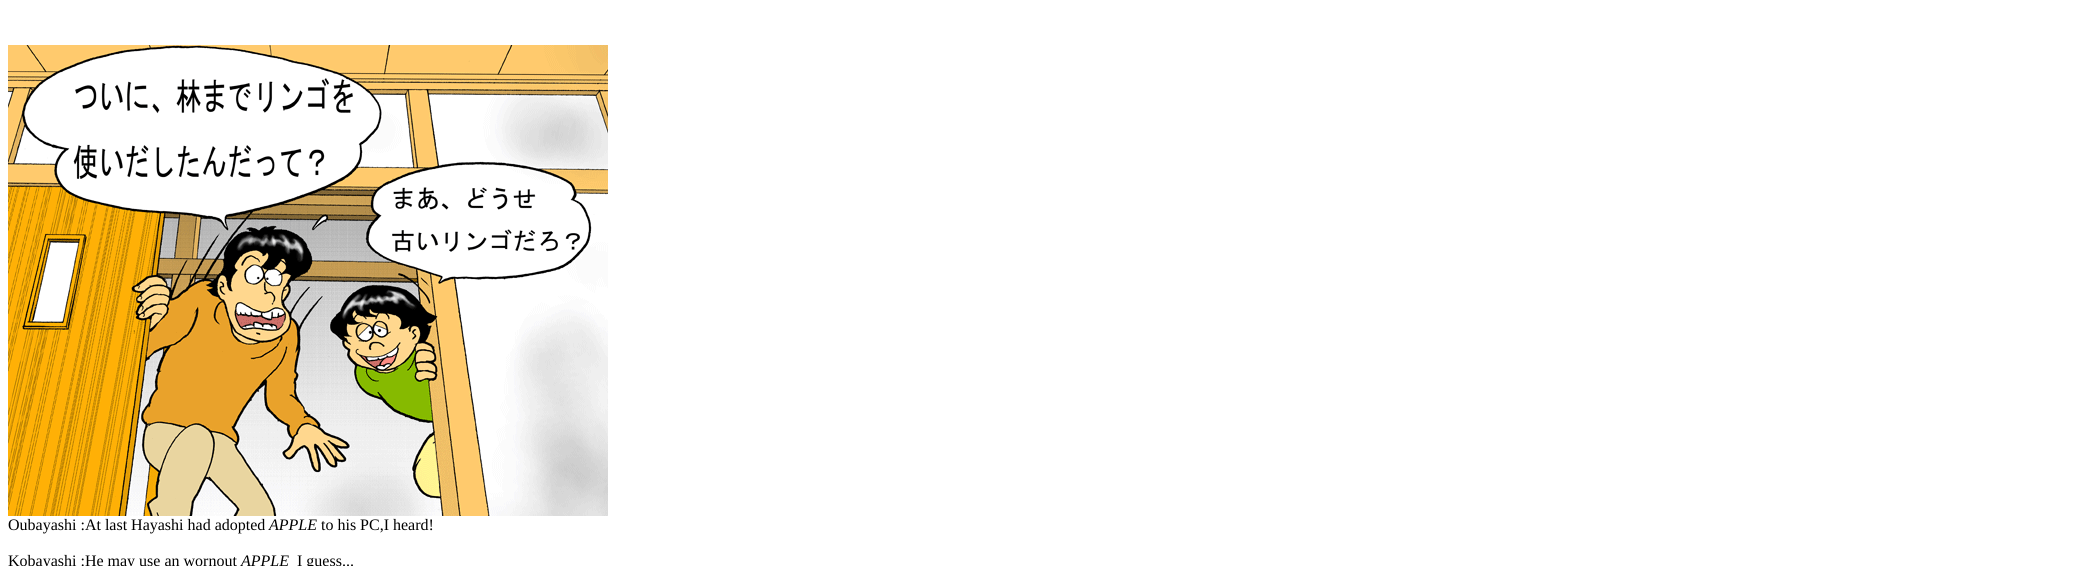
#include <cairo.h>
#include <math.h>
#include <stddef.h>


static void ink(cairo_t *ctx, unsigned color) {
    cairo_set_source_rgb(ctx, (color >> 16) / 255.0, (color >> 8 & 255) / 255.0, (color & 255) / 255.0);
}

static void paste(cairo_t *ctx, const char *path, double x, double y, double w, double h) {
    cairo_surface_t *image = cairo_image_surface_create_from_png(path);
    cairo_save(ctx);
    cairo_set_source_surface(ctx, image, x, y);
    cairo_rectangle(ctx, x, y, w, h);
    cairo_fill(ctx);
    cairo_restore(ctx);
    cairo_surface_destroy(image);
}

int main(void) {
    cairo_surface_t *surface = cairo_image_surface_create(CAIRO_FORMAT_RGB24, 2082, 566);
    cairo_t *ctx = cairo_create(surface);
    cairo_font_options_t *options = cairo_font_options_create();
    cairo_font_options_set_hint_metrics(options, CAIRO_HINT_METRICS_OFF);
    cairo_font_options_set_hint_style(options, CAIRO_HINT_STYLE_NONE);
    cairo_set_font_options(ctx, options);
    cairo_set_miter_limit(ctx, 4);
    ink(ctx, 0xFFFFFF);
    cairo_paint(ctx);
    paste(ctx, "media/1.png", 8, 45, 600, 471);
    cairo_select_font_face(ctx, "Liberation Serif", CAIRO_FONT_SLANT_NORMAL, CAIRO_FONT_WEIGHT_NORMAL);
    cairo_set_font_size(ctx, 16);
    ink(ctx, 0x000000);
    cairo_move_to(ctx, 8, 530);
    cairo_show_text(ctx, "Oubayashi :At last Hayashi had adopted");
    cairo_select_font_face(ctx, "Liberation Serif", CAIRO_FONT_SLANT_ITALIC, CAIRO_FONT_WEIGHT_NORMAL);
    cairo_move_to(ctx, 269, 530);
    cairo_show_text(ctx, "APPLE");
    cairo_select_font_face(ctx, "Liberation Serif", CAIRO_FONT_SLANT_NORMAL, CAIRO_FONT_WEIGHT_NORMAL);
    cairo_move_to(ctx, 321, 530);
    cairo_show_text(ctx, "to his PC,I heard!");
    cairo_move_to(ctx, 8, 566);
    cairo_show_text(ctx, "Kobayashi :He may use an wornout");
    cairo_select_font_face(ctx, "Liberation Serif", CAIRO_FONT_SLANT_ITALIC, CAIRO_FONT_WEIGHT_NORMAL);
    cairo_move_to(ctx, 241, 566);
    cairo_show_text(ctx, "APPLE");
    cairo_select_font_face(ctx, "Liberation Serif", CAIRO_FONT_SLANT_NORMAL, CAIRO_FONT_WEIGHT_NORMAL);
    cairo_move_to(ctx, 297, 566);
    cairo_show_text(ctx, "I guess...");
    cairo_surface_write_to_png(surface, "image.png");
    cairo_font_options_destroy(options);
    cairo_destroy(ctx);
    cairo_surface_destroy(surface);
    return 0;
}
